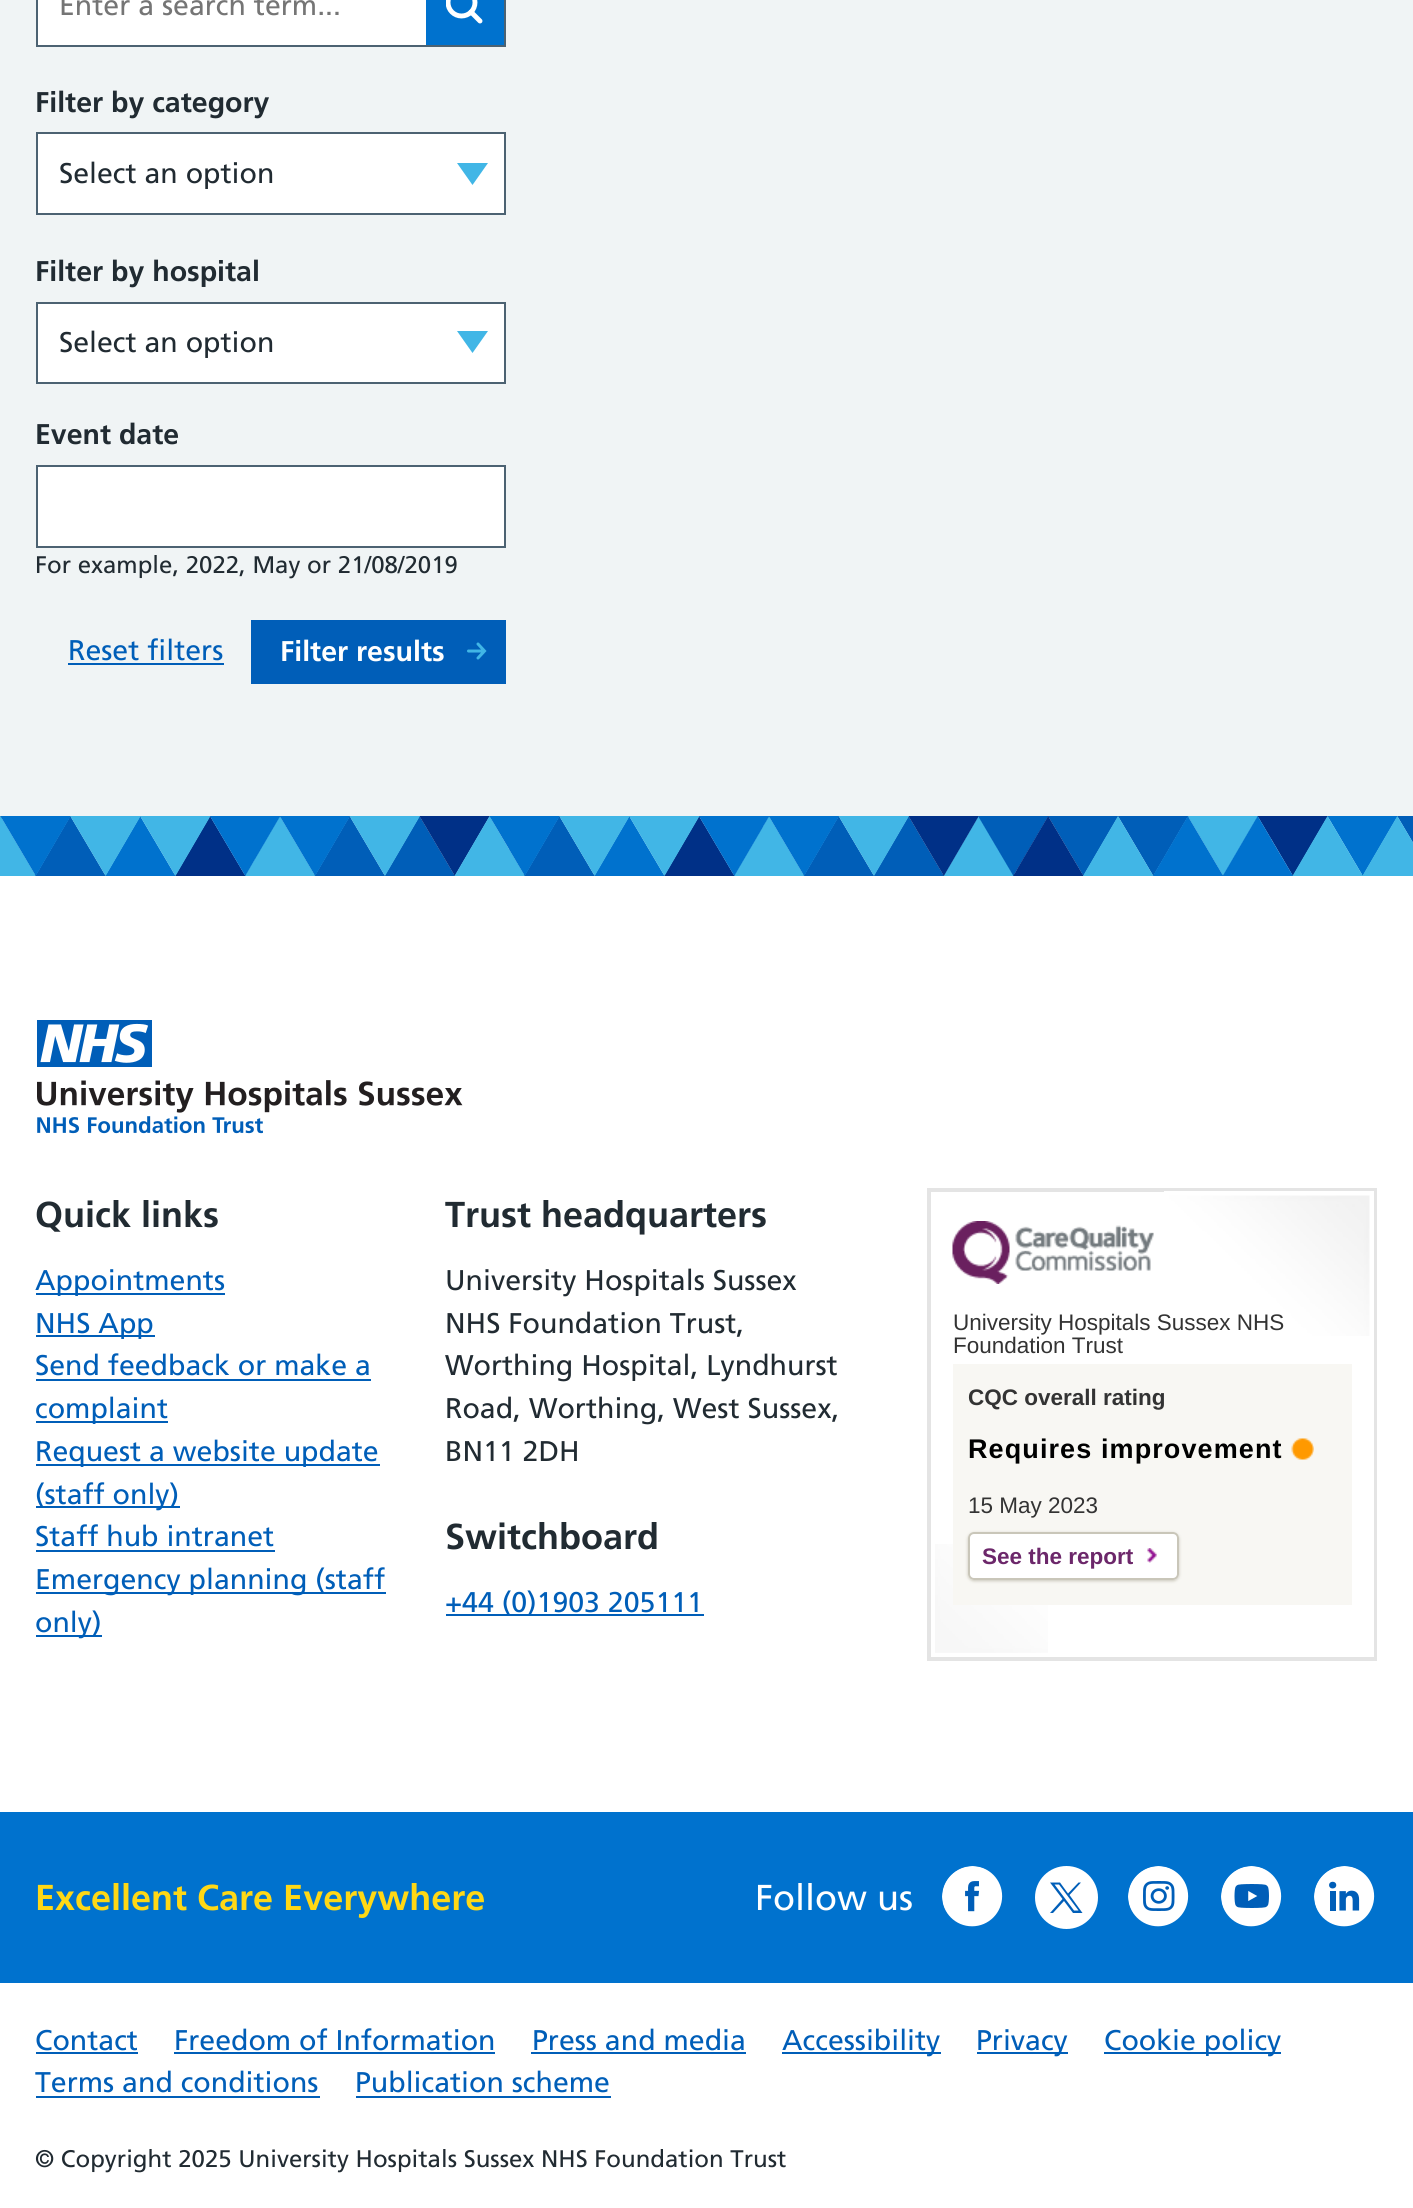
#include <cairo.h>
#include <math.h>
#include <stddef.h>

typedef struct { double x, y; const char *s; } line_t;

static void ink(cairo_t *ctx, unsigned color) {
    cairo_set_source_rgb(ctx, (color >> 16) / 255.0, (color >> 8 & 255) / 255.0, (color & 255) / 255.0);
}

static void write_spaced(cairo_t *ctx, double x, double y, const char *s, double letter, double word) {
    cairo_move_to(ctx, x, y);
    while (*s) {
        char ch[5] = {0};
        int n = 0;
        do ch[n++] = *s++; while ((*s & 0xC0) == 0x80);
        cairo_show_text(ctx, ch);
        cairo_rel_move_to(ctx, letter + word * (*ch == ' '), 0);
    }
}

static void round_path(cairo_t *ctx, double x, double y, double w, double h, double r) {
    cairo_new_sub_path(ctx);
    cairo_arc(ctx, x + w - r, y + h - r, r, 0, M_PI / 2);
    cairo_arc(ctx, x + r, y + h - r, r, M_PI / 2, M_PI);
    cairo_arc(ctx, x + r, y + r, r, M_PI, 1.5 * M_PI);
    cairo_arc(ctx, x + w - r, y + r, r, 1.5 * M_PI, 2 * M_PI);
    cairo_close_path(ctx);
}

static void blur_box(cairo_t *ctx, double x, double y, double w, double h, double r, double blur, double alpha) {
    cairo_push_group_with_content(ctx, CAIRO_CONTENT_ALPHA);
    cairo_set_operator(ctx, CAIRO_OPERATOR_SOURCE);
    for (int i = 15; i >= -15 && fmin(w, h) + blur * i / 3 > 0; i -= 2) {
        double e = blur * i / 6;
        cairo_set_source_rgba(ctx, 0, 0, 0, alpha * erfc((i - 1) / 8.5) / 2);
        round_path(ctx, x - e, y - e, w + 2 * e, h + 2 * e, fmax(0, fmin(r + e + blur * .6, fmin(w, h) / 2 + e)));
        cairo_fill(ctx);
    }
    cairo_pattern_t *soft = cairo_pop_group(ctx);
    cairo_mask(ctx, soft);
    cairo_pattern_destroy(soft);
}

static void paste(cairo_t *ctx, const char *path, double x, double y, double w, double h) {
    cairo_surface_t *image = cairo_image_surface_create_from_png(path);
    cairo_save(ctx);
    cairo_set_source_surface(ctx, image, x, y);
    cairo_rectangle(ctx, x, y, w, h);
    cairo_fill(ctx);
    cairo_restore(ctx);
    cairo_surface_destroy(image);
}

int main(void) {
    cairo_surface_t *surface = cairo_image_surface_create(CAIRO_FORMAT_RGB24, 1413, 2208);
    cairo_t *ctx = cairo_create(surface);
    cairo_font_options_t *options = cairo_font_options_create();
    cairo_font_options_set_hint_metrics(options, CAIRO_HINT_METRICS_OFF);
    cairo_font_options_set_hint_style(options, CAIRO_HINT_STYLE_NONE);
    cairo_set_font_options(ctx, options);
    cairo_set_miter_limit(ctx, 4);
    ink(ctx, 0xF0F4F5);
    cairo_paint(ctx);
    ink(ctx, 0xFFFFFF);
    cairo_rectangle(ctx, 38, 0, 388, 45);
    cairo_fill(ctx);
    cairo_rectangle(ctx, 37, -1, 468, 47);
    ink(ctx, 0x4C6272);
    cairo_stroke(ctx);
    cairo_select_font_face(ctx, "Frutiger", CAIRO_FONT_SLANT_NORMAL, CAIRO_FONT_WEIGHT_NORMAL);
    cairo_set_font_size(ctx, 28.5);
    ink(ctx, 0x757575);
    cairo_move_to(ctx, 59, 15);
    cairo_show_text(ctx, "Enter a search term...");
    ink(ctx, 0x0072CE);
    cairo_rectangle(ctx, 426, 0, 78, 45);
    cairo_fill(ctx);
    cairo_save(ctx);
    cairo_rectangle(ctx, 446, 0, 37, 24);
    cairo_clip(ctx);
    cairo_arc(ctx, 461.5, 2.5, 13.5, 0, 2 * M_PI);
    ink(ctx, 0xFFFFFF);
    cairo_set_line_width(ctx, 4.9);
    cairo_stroke(ctx);
    cairo_restore(ctx);
    cairo_new_path(ctx);
    cairo_move_to(ctx, 471, 12);
    cairo_line_to(ctx, 480, 21);
    ink(ctx, 0xFFFFFF);
    cairo_set_line_width(ctx, 4.9);
    cairo_set_line_cap(ctx, CAIRO_LINE_CAP_ROUND);
    cairo_set_line_join(ctx, CAIRO_LINE_JOIN_ROUND);
    cairo_stroke(ctx);
    cairo_select_font_face(ctx, "Frutiger", CAIRO_FONT_SLANT_NORMAL, CAIRO_FONT_WEIGHT_BOLD);
    ink(ctx, 0x212B32);
    cairo_move_to(ctx, 35, 112);
    cairo_show_text(ctx, "Filter by category");
    ink(ctx, 0xFFFFFF);
    cairo_rectangle(ctx, 38, 134, 466, 79);
    cairo_fill(ctx);
    ink(ctx, 0x41B6E6);
    cairo_set_fill_rule(ctx, CAIRO_FILL_RULE_EVEN_ODD);
    cairo_new_path(ctx);
    cairo_move_to(ctx, 488, 163);
    cairo_line_to(ctx, 472.5, 185);
    cairo_line_to(ctx, 457, 163);
    cairo_close_path(ctx);
    cairo_fill(ctx);
    cairo_rectangle(ctx, 37, 133, 468, 81);
    ink(ctx, 0x4C6272);
    cairo_set_line_width(ctx, 2);
    cairo_set_line_cap(ctx, CAIRO_LINE_CAP_BUTT);
    cairo_set_line_join(ctx, CAIRO_LINE_JOIN_MITER);
    cairo_stroke(ctx);
    cairo_select_font_face(ctx, "Frutiger", CAIRO_FONT_SLANT_NORMAL, CAIRO_FONT_WEIGHT_NORMAL);
    ink(ctx, 0x212B32);
    cairo_move_to(ctx, 59, 183);
    cairo_show_text(ctx, "Select an option");
    cairo_select_font_face(ctx, "Frutiger", CAIRO_FONT_SLANT_NORMAL, CAIRO_FONT_WEIGHT_BOLD);
    cairo_move_to(ctx, 35, 281);
    cairo_show_text(ctx, "Filter by hospital");
    ink(ctx, 0xFFFFFF);
    cairo_rectangle(ctx, 38, 304, 466, 78);
    cairo_fill(ctx);
    ink(ctx, 0x41B6E6);
    cairo_new_path(ctx);
    cairo_move_to(ctx, 488, 331);
    cairo_line_to(ctx, 472.5, 353);
    cairo_line_to(ctx, 457, 331);
    cairo_close_path(ctx);
    cairo_fill(ctx);
    cairo_rectangle(ctx, 37, 303, 468, 80);
    ink(ctx, 0x4C6272);
    cairo_stroke(ctx);
    cairo_select_font_face(ctx, "Frutiger", CAIRO_FONT_SLANT_NORMAL, CAIRO_FONT_WEIGHT_NORMAL);
    ink(ctx, 0x212B32);
    cairo_move_to(ctx, 59, 352);
    cairo_show_text(ctx, "Select an option");
    cairo_select_font_face(ctx, "Frutiger", CAIRO_FONT_SLANT_NORMAL, CAIRO_FONT_WEIGHT_BOLD);
    cairo_move_to(ctx, 35, 444);
    cairo_show_text(ctx, "Event date");
    ink(ctx, 0xFFFFFF);
    cairo_rectangle(ctx, 37, 466, 468, 81);
    cairo_fill_preserve(ctx);
    ink(ctx, 0x4C6272);
    cairo_stroke(ctx);
    cairo_select_font_face(ctx, "Frutiger", CAIRO_FONT_SLANT_NORMAL, CAIRO_FONT_WEIGHT_NORMAL);
    cairo_set_font_size(ctx, 24);
    ink(ctx, 0x212B32);
    cairo_move_to(ctx, 35, 573);
    cairo_show_text(ctx, "For example, 2022, May or 21/08/2019");
    cairo_set_font_size(ctx, 28.5);
    ink(ctx, 0x005EB8);
    cairo_move_to(ctx, 68, 660);
    cairo_show_text(ctx, "Reset filters");
    cairo_rectangle(ctx, 68, 663, 156, 2);
    cairo_fill(ctx);
    cairo_rectangle(ctx, 251, 620, 255, 64);
    cairo_fill(ctx);
    cairo_new_path(ctx);
    cairo_move_to(ctx, 468.5, 651);
    cairo_line_to(ctx, 481.5, 651);
    cairo_move_to(ctx, 478, 644);
    cairo_line_to(ctx, 484.5, 651);
    cairo_line_to(ctx, 478, 658);
    ink(ctx, 0x41B6E6);
    cairo_set_line_width(ctx, 3);
    cairo_set_line_cap(ctx, CAIRO_LINE_CAP_ROUND);
    cairo_stroke(ctx);
    cairo_select_font_face(ctx, "Frutiger", CAIRO_FONT_SLANT_NORMAL, CAIRO_FONT_WEIGHT_BOLD);
    ink(ctx, 0xFFFFFF);
    cairo_move_to(ctx, 280, 661);
    cairo_show_text(ctx, "Filter results");
    cairo_rectangle(ctx, 0, 817, 1413, 1391);
    cairo_fill(ctx);
    paste(ctx, "media/1.png", 0, 816, 1413, 60);
    paste(ctx, "media/2.png", 37, 1020, 426, 114);
    cairo_set_font_size(ctx, 36);
    ink(ctx, 0x212B32);
    cairo_move_to(ctx, 35, 1227);
    cairo_show_text(ctx, "Quick links");
    ink(ctx, 0x005EB8);
    cairo_rectangle(ctx, 36, 1293, 189, 2);
    cairo_fill(ctx);
    cairo_select_font_face(ctx, "Frutiger", CAIRO_FONT_SLANT_NORMAL, CAIRO_FONT_WEIGHT_NORMAL);
    cairo_set_font_size(ctx, 28.5);
    cairo_move_to(ctx, 35, 1290);
    cairo_show_text(ctx, "Appointments");
    cairo_rectangle(ctx, 36, 1335, 119, 2);
    cairo_fill(ctx);
    cairo_move_to(ctx, 35, 1333);
    cairo_show_text(ctx, "NHS App");
    cairo_move_to(ctx, 35, 1375);
    cairo_show_text(ctx, "Send feedback or make a");
    cairo_rectangle(ctx, 36, 1379, 335, 2);
    cairo_fill(ctx);
    cairo_rectangle(ctx, 36, 1421, 132, 2);
    cairo_fill(ctx);
    cairo_move_to(ctx, 35, 1418);
    cairo_show_text(ctx, "complaint");
    cairo_rectangle(ctx, 36, 1464, 344, 2);
    cairo_fill(ctx);
    cairo_move_to(ctx, 35, 1461);
    cairo_show_text(ctx, "Request a website update");
    cairo_rectangle(ctx, 36, 1506, 144, 2);
    cairo_fill(ctx);
    cairo_move_to(ctx, 35, 1504);
    cairo_show_text(ctx, "(staff only)");
    cairo_move_to(ctx, 35, 1546);
    cairo_show_text(ctx, "Staff hub intranet");
    cairo_rectangle(ctx, 36, 1550, 239, 2);
    cairo_fill(ctx);
    cairo_rectangle(ctx, 36, 1592, 350, 2);
    cairo_fill(ctx);
    cairo_move_to(ctx, 35, 1589);
    cairo_show_text(ctx, "Emergency planning (staff");
    cairo_rectangle(ctx, 36, 1635, 66, 2);
    cairo_fill(ctx);
    cairo_move_to(ctx, 35, 1632);
    cairo_show_text(ctx, "only)");
    cairo_select_font_face(ctx, "Frutiger", CAIRO_FONT_SLANT_NORMAL, CAIRO_FONT_WEIGHT_BOLD);
    cairo_set_font_size(ctx, 36);
    ink(ctx, 0x212B32);
    cairo_move_to(ctx, 445, 1227);
    cairo_show_text(ctx, "Trust headquarters");
    cairo_select_font_face(ctx, "Frutiger", CAIRO_FONT_SLANT_NORMAL, CAIRO_FONT_WEIGHT_NORMAL);
    cairo_set_font_size(ctx, 28.5);
    {
        static const line_t items[] = {
            {445, 1290, "University Hospitals Sussex"},
            {445, 1333, "NHS Foundation Trust,"},
            {445, 1375, "Worthing Hospital, Lyndhurst"},
            {445, 1418, "Road, Worthing, West Sussex,"},
            {445, 1461, "BN11 2DH"},
        };
        for (size_t i = 0; i < sizeof items / sizeof *items; i++) {
            cairo_move_to(ctx, items[i].x, items[i].y);
            cairo_show_text(ctx, items[i].s);
        }
    }
    cairo_select_font_face(ctx, "Frutiger", CAIRO_FONT_SLANT_NORMAL, CAIRO_FONT_WEIGHT_BOLD);
    cairo_set_font_size(ctx, 36);
    cairo_move_to(ctx, 445, 1549);
    cairo_show_text(ctx, "Switchboard");
    ink(ctx, 0x005EB8);
    cairo_rectangle(ctx, 446, 1614, 258, 2);
    cairo_fill(ctx);
    cairo_select_font_face(ctx, "Frutiger", CAIRO_FONT_SLANT_NORMAL, CAIRO_FONT_WEIGHT_NORMAL);
    cairo_set_font_size(ctx, 28.5);
    cairo_move_to(ctx, 445, 1612);
    cairo_show_text(ctx, "+44 (0)1903 205111");
    cairo_rectangle(ctx, 928, 1189, 448, 471);
    ink(ctx, 0xE4E4E4);
    cairo_set_line_width(ctx, 2);
    cairo_set_line_cap(ctx, CAIRO_LINE_CAP_BUTT);
    cairo_stroke(ctx);
    paste(ctx, "media/3.png", 935, 1544, 113, 109);
    cairo_rectangle(ctx, 930, 1191, 445, 467);
    cairo_stroke(ctx);
    paste(ctx, "media/4.png", 1164, 1191, 210, 145);
    paste(ctx, "media/5.png", 952, 1221, 202, 63);
    cairo_select_font_face(ctx, "Liberation Sans", CAIRO_FONT_SLANT_NORMAL, CAIRO_FONT_WEIGHT_NORMAL);
    cairo_set_font_size(ctx, 22.5);
    ink(ctx, 0x333333);
    cairo_move_to(ctx, 953, 1330);
    cairo_show_text(ctx, "University Hospitals Sussex NHS");
    cairo_move_to(ctx, 953, 1353);
    cairo_show_text(ctx, "Foundation Trust");
    ink(ctx, 0xF8F7F3);
    cairo_rectangle(ctx, 953, 1364, 399, 241);
    cairo_fill(ctx);
    cairo_select_font_face(ctx, "Liberation Sans", CAIRO_FONT_SLANT_NORMAL, CAIRO_FONT_WEIGHT_BOLD);
    ink(ctx, 0x333333);
    cairo_move_to(ctx, 968, 1405);
    cairo_show_text(ctx, "CQC overall rating");
    cairo_set_font_size(ctx, 27);
    ink(ctx, 0x000000);
    write_spaced(ctx, 968, 1458, "Requires improvement", 1.1, 0);
    paste(ctx, "media/6.png", 1291, 1438, 23, 22);
    cairo_select_font_face(ctx, "Liberation Sans", CAIRO_FONT_SLANT_NORMAL, CAIRO_FONT_WEIGHT_NORMAL);
    cairo_set_font_size(ctx, 22.5);
    ink(ctx, 0x333333);
    cairo_move_to(ctx, 968, 1513);
    cairo_show_text(ctx, "15 May 2023");
    ink(ctx, 0xC9C6B9);
    blur_box(ctx, 968, 1533, 211, 48, 6, 1.5, 1);
    ink(ctx, 0xFFFFFF);
    round_path(ctx, 968, 1532, 211, 48, 6);
    cairo_fill(ctx);
    paste(ctx, "media/7.png", 1147, 1548, 10, 15);
    round_path(ctx, 969, 1533, 209, 46, 5);
    ink(ctx, 0xC9C6B9);
    cairo_stroke(ctx);
    cairo_select_font_face(ctx, "Liberation Sans", CAIRO_FONT_SLANT_NORMAL, CAIRO_FONT_WEIGHT_BOLD);
    ink(ctx, 0x6C276A);
    cairo_move_to(ctx, 982, 1564);
    cairo_show_text(ctx, "See the report");
    ink(ctx, 0x0072CE);
    cairo_rectangle(ctx, 0, 1812, 1413, 171);
    cairo_fill(ctx);
    cairo_select_font_face(ctx, "Frutiger", CAIRO_FONT_SLANT_NORMAL, CAIRO_FONT_WEIGHT_BOLD);
    cairo_set_font_size(ctx, 36);
    ink(ctx, 0xFFD815);
    cairo_move_to(ctx, 35, 1910);
    cairo_show_text(ctx, "Excellent Care Everywhere");
    cairo_select_font_face(ctx, "Frutiger", CAIRO_FONT_SLANT_NORMAL, CAIRO_FONT_WEIGHT_NORMAL);
    ink(ctx, 0xFFFFFF);
    cairo_move_to(ctx, 755, 1910);
    cairo_show_text(ctx, "Follow us");
    paste(ctx, "media/8.png", 942, 1866, 61, 61);
    cairo_arc(ctx, 1066.5, 1897.5, 31.5, 0, 2 * M_PI);
    cairo_fill(ctx);
    ink(ctx, 0x005EB8);
    cairo_set_fill_rule(ctx, CAIRO_FILL_RULE_WINDING);
    cairo_new_path(ctx);
    cairo_move_to(ctx, 1050, 1882.5);
    cairo_line_to(ctx, 1062.5, 1899);
    cairo_line_to(ctx, 1050, 1913);
    cairo_line_to(ctx, 1053, 1913);
    cairo_line_to(ctx, 1064, 1901);
    cairo_line_to(ctx, 1073, 1913);
    cairo_line_to(ctx, 1082.5, 1913);
    cairo_line_to(ctx, 1069.5, 1895);
    cairo_line_to(ctx, 1081, 1882.5);
    cairo_line_to(ctx, 1078.5, 1882.5);
    cairo_line_to(ctx, 1068, 1893.5);
    cairo_line_to(ctx, 1060, 1882.5);
    cairo_close_path(ctx);
    cairo_move_to(ctx, 1054.5, 1884.5);
    cairo_line_to(ctx, 1059, 1884.5);
    cairo_line_to(ctx, 1078.5, 1910.5);
    cairo_line_to(ctx, 1074, 1910.5);
    cairo_close_path(ctx);
    cairo_fill(ctx);
    paste(ctx, "media/9.png", 1128, 1866, 61, 61);
    paste(ctx, "media/10.png", 1221, 1866, 61, 61);
    paste(ctx, "media/11.png", 1314, 1866, 61, 61);
    cairo_set_font_size(ctx, 28.5);
    cairo_move_to(ctx, 35, 2050);
    cairo_show_text(ctx, "Contact");
    cairo_rectangle(ctx, 36, 2052, 102, 2);
    cairo_fill(ctx);
    cairo_move_to(ctx, 174, 2050);
    cairo_show_text(ctx, "Freedom of Information");
    cairo_rectangle(ctx, 174, 2052, 321, 2);
    cairo_fill(ctx);
    cairo_move_to(ctx, 532, 2050);
    cairo_show_text(ctx, "Press and media");
    cairo_rectangle(ctx, 531, 2052, 215, 2);
    cairo_fill(ctx);
    cairo_rectangle(ctx, 782, 2052, 159, 2);
    cairo_fill(ctx);
    cairo_move_to(ctx, 782, 2050);
    cairo_show_text(ctx, "Accessibility");
    cairo_rectangle(ctx, 977, 2052, 91, 2);
    cairo_fill(ctx);
    cairo_move_to(ctx, 976, 2050);
    cairo_show_text(ctx, "Privacy");
    cairo_rectangle(ctx, 1104, 2052, 177, 2);
    cairo_fill(ctx);
    cairo_move_to(ctx, 1104, 2050);
    cairo_show_text(ctx, "Cookie policy");
    cairo_move_to(ctx, 35, 2092);
    cairo_show_text(ctx, "Terms and conditions");
    cairo_rectangle(ctx, 36, 2096, 284, 2);
    cairo_fill(ctx);
    cairo_move_to(ctx, 355, 2092);
    cairo_show_text(ctx, "Publication scheme");
    cairo_rectangle(ctx, 356, 2096, 255, 2);
    cairo_fill(ctx);
    cairo_set_font_size(ctx, 24);
    ink(ctx, 0x212B32);
    cairo_move_to(ctx, 35, 2167);
    cairo_show_text(ctx, "© Copyright 2025 University Hospitals Sussex NHS Foundation Trust");
    cairo_surface_write_to_png(surface, "image.png");
    cairo_font_options_destroy(options);
    cairo_destroy(ctx);
    cairo_surface_destroy(surface);
    return 0;
}
